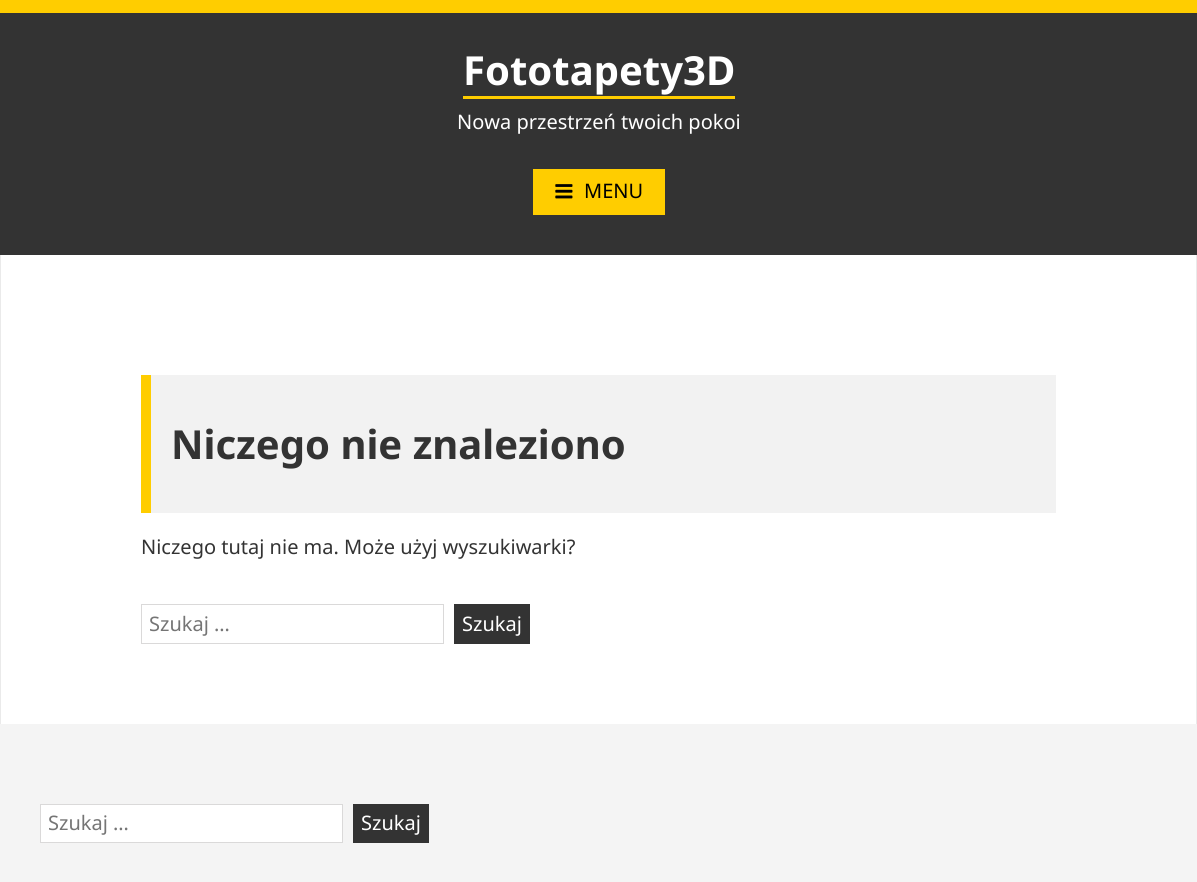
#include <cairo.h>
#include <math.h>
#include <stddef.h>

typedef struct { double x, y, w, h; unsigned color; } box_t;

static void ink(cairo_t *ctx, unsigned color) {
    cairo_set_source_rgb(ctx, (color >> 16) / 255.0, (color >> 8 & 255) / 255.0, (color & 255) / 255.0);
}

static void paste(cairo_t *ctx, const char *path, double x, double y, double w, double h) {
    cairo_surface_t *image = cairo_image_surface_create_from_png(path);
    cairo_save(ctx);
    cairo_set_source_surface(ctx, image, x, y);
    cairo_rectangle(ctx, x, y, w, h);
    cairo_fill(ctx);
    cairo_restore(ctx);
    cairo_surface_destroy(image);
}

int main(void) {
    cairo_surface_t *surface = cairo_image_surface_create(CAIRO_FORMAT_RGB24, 1197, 882);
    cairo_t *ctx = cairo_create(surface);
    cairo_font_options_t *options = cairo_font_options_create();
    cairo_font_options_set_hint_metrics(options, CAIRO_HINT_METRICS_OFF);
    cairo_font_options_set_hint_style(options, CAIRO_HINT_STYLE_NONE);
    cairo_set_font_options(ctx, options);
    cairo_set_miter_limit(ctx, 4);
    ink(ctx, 0xF4F4F4);
    cairo_paint(ctx);
    ink(ctx, 0x333333);
    cairo_rectangle(ctx, 0, 13, 1197, 242);
    cairo_fill(ctx);
    ink(ctx, 0xFFCD00);
    cairo_rectangle(ctx, 0, 0, 1197, 13);
    cairo_fill(ctx);
    cairo_select_font_face(ctx, "Noto Sans", CAIRO_FONT_SLANT_NORMAL, CAIRO_FONT_WEIGHT_BOLD);
    cairo_set_font_size(ctx, 40);
    ink(ctx, 0xFFFFFF);
    cairo_move_to(ctx, 463, 85);
    cairo_show_text(ctx, "Fototapety3D");
    ink(ctx, 0xFFCD00);
    cairo_rectangle(ctx, 463, 96, 272, 3);
    cairo_fill(ctx);
    cairo_select_font_face(ctx, "Noto Sans", CAIRO_FONT_SLANT_NORMAL, CAIRO_FONT_WEIGHT_NORMAL);
    cairo_set_font_size(ctx, 20);
    ink(ctx, 0xFFFFFF);
    cairo_move_to(ctx, 457, 129);
    cairo_show_text(ctx, "Nowa przestrzeń twoich pokoi");
    ink(ctx, 0xFFCD00);
    cairo_rectangle(ctx, 533, 169, 132, 46);
    cairo_fill(ctx);
    paste(ctx, "media/1.png", 555, 184, 18, 15);
    ink(ctx, 0x000000);
    cairo_move_to(ctx, 584, 198);
    cairo_show_text(ctx, "MENU");
    {
        static const box_t items[] = {
            {1, 255, 1195, 469, 0xFFFFFF},
            {1196, 255, 1, 469, 0xEAEAEA},
            {0, 255, 1, 469, 0xEAEAEA},
            {151, 375, 905, 138, 0xF2F2F2},
            {141, 375, 10, 138, 0xFFCD00},
        };
        for (size_t i = 0; i < sizeof items / sizeof *items; i++) {
            ink(ctx, items[i].color);
            cairo_rectangle(ctx, items[i].x, items[i].y, items[i].w, items[i].h);
            cairo_fill(ctx);
        }
    }
    cairo_select_font_face(ctx, "Noto Sans", CAIRO_FONT_SLANT_NORMAL, CAIRO_FONT_WEIGHT_BOLD);
    cairo_set_font_size(ctx, 40);
    ink(ctx, 0x333333);
    cairo_move_to(ctx, 171, 459);
    cairo_show_text(ctx, "Niczego nie znaleziono");
    cairo_select_font_face(ctx, "Noto Sans", CAIRO_FONT_SLANT_NORMAL, CAIRO_FONT_WEIGHT_NORMAL);
    cairo_set_font_size(ctx, 20);
    cairo_move_to(ctx, 141, 554);
    cairo_show_text(ctx, "Niczego tutaj nie ma. Może użyj wyszukiwarki?");
    cairo_rectangle(ctx, 141.5, 604.5, 302, 39);
    ink(ctx, 0xDAD9D9);
    cairo_set_line_width(ctx, 1);
    cairo_stroke(ctx);
    ink(ctx, 0x757575);
    cairo_move_to(ctx, 149, 631);
    cairo_show_text(ctx, "Szukaj …");
    ink(ctx, 0x333333);
    cairo_rectangle(ctx, 454, 604, 76, 40);
    cairo_fill(ctx);
    ink(ctx, 0xFFFFFF);
    cairo_move_to(ctx, 462, 631);
    cairo_show_text(ctx, "Szukaj");
    cairo_rectangle(ctx, 40.5, 804.5, 302, 38);
    cairo_fill_preserve(ctx);
    ink(ctx, 0xDAD9D9);
    cairo_stroke(ctx);
    ink(ctx, 0x757575);
    cairo_move_to(ctx, 48, 830);
    cairo_show_text(ctx, "Szukaj …");
    ink(ctx, 0x333333);
    cairo_rectangle(ctx, 353, 804, 76, 39);
    cairo_fill(ctx);
    ink(ctx, 0xFFFFFF);
    cairo_move_to(ctx, 361, 830);
    cairo_show_text(ctx, "Szukaj");
    cairo_surface_write_to_png(surface, "image.png");
    cairo_font_options_destroy(options);
    cairo_destroy(ctx);
    cairo_surface_destroy(surface);
    return 0;
}
